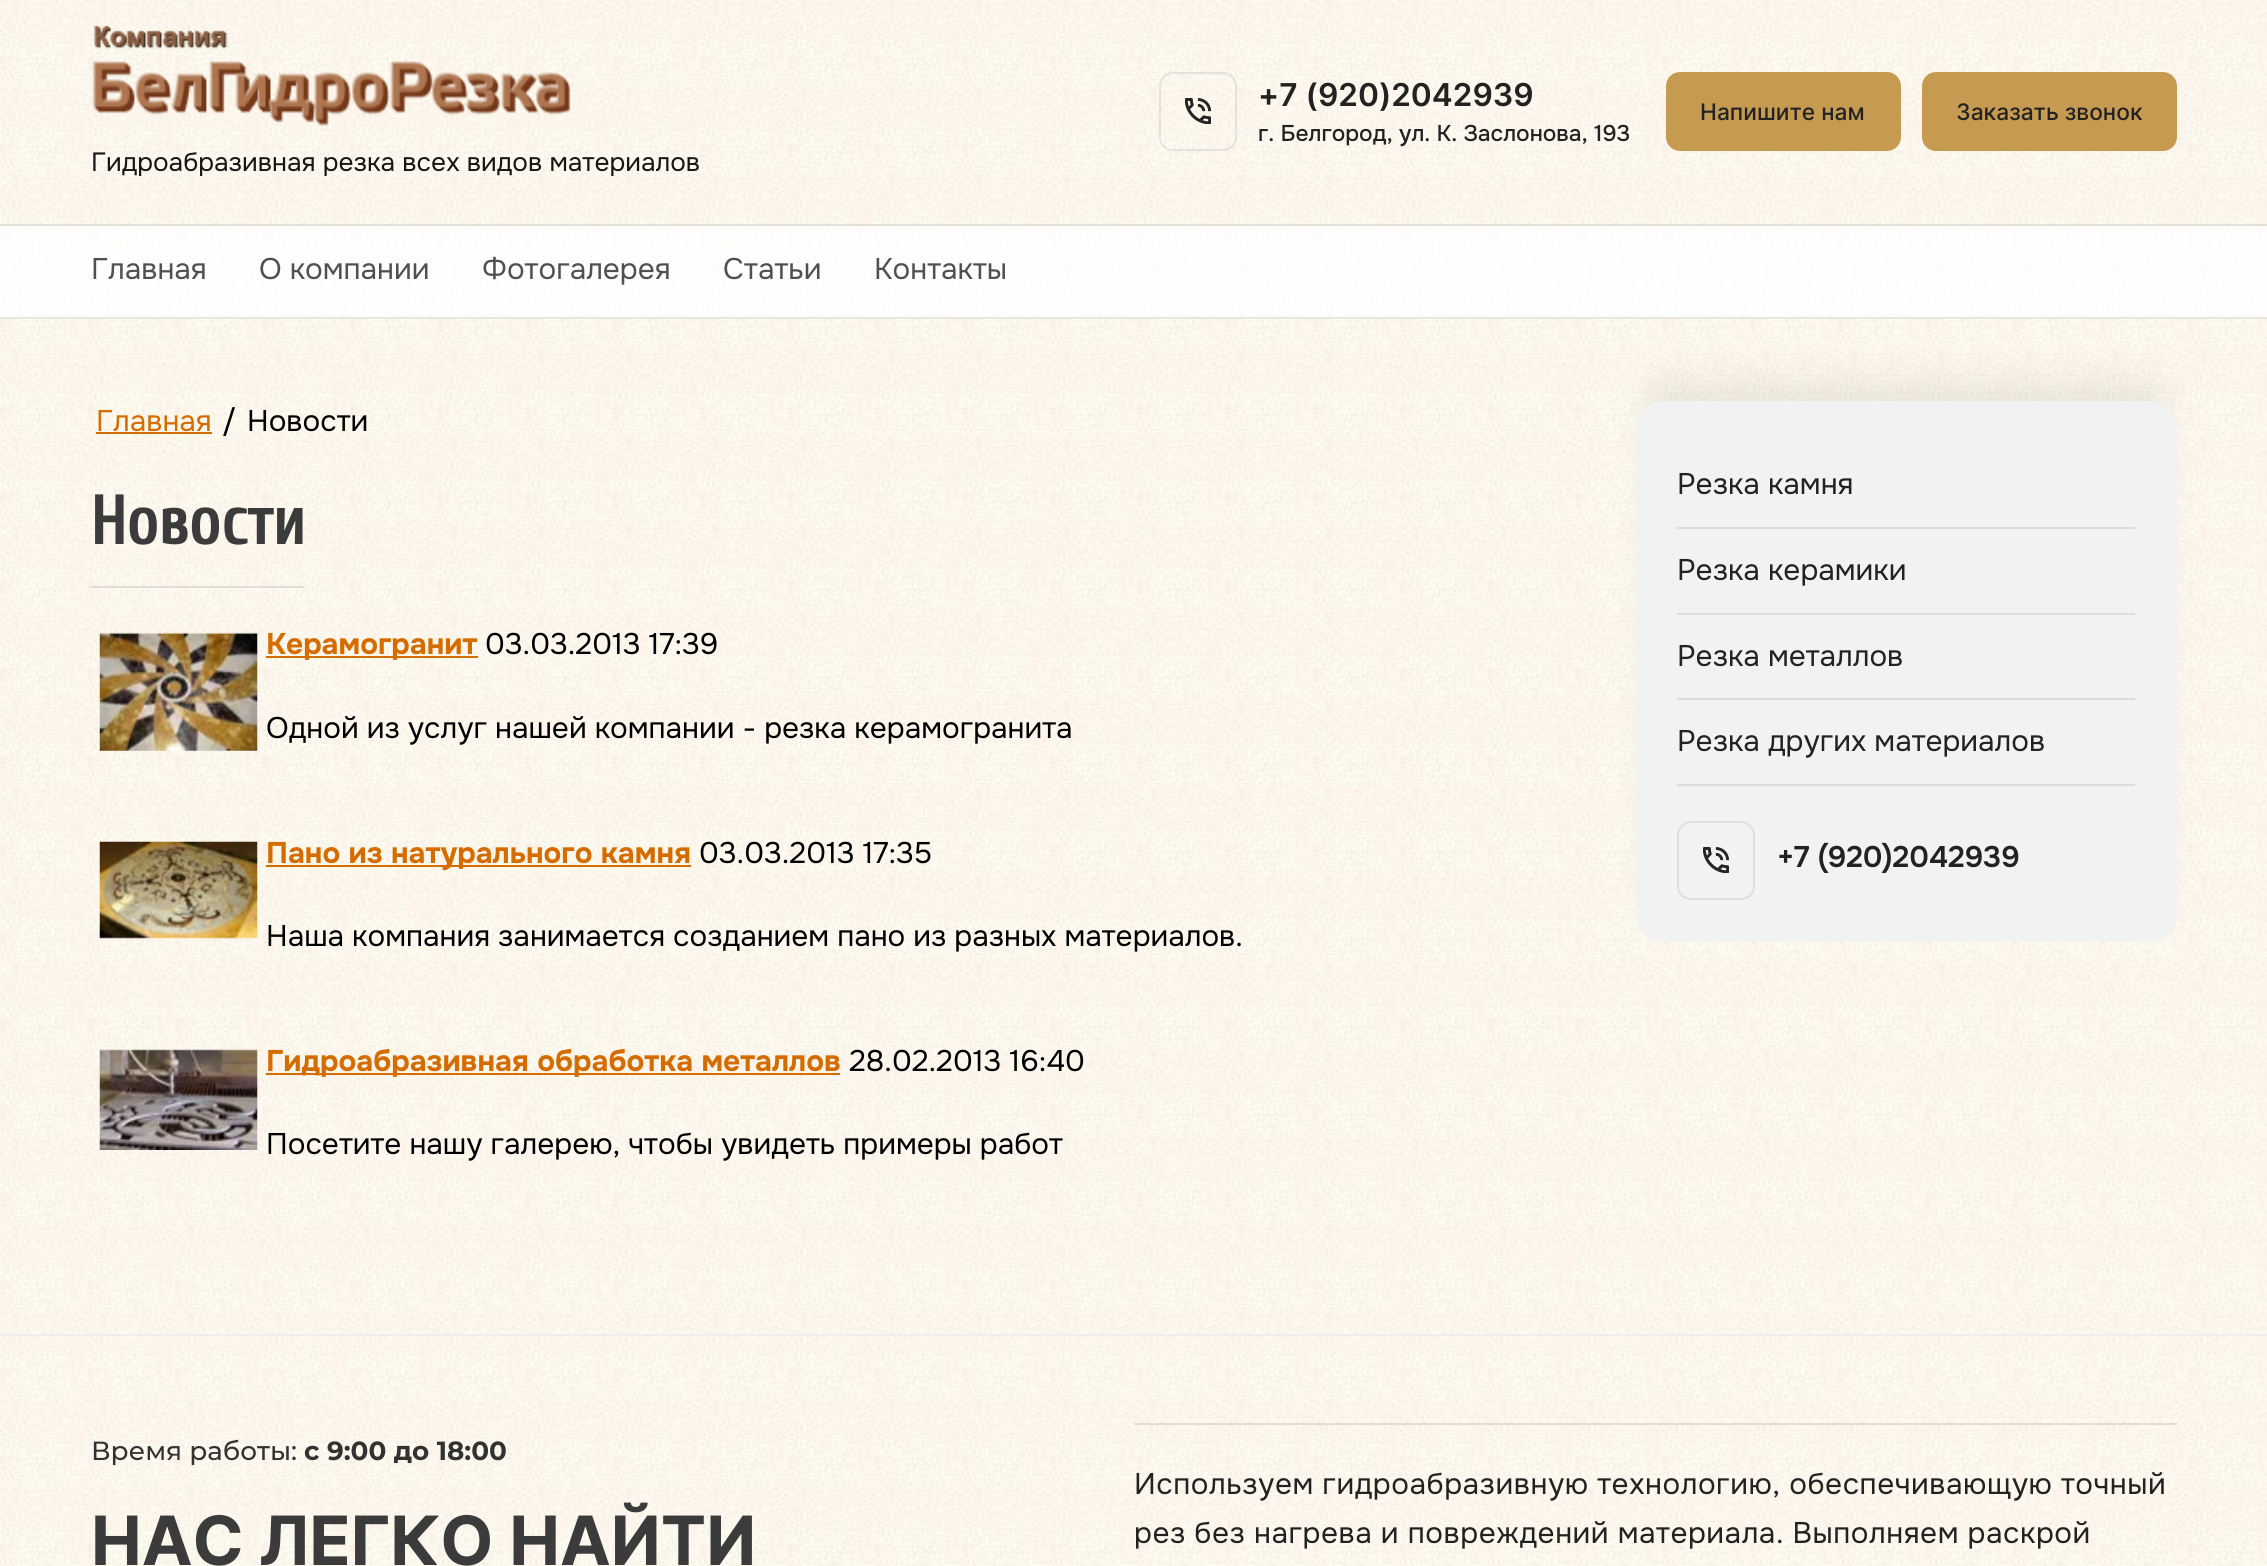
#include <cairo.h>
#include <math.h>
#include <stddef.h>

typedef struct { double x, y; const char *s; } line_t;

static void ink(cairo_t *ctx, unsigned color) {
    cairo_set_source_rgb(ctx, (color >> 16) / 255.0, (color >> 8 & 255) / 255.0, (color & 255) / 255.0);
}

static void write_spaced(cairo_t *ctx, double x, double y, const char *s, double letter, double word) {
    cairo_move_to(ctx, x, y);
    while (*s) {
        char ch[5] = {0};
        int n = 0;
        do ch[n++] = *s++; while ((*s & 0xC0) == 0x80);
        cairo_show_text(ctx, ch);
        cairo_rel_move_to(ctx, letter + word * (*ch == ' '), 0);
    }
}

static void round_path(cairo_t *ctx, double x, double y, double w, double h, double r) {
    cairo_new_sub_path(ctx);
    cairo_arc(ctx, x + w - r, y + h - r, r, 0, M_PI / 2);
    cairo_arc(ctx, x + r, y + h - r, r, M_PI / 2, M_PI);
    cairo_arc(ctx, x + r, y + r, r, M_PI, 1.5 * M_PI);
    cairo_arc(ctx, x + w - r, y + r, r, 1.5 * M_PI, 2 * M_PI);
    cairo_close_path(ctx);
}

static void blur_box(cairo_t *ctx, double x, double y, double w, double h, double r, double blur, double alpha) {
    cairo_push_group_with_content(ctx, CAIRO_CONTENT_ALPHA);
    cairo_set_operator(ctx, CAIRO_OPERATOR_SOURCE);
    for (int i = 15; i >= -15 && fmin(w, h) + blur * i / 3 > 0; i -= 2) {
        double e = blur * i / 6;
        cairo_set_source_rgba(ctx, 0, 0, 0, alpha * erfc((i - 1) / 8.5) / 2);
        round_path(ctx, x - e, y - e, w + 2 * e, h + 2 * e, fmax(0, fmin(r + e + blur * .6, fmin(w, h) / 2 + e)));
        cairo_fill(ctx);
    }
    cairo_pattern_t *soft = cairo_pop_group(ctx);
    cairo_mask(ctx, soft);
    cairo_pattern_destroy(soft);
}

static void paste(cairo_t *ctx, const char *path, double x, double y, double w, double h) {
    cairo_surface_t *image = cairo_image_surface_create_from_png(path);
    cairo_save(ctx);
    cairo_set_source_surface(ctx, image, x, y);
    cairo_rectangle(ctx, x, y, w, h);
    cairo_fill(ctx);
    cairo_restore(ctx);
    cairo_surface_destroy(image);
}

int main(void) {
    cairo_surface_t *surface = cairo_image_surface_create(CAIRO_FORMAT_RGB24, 2267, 1566);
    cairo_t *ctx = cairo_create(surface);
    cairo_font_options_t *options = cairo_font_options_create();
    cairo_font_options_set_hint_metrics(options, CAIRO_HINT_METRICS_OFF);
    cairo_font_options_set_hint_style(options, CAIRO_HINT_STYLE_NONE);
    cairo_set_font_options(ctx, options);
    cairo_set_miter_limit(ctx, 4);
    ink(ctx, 0xFFFFFF);
    cairo_paint(ctx);
    paste(ctx, "media/1.png", 0, 0, 2267, 1566);
    cairo_set_source_rgba(ctx, 0.086, 0.086, 0.086, 0.1);
    cairo_rectangle(ctx, 0, 224, 2267, 2);
    cairo_fill(ctx);
    round_path(ctx, 1160, 73, 76, 77, 13);
    cairo_set_source_rgba(ctx, 0.067, 0.188, 0.29, 0.1);
    cairo_stroke(ctx);
    paste(ctx, "media/2.png", 1185, 98, 26, 26);
    cairo_select_font_face(ctx, "Inter SemiBold", CAIRO_FONT_SLANT_NORMAL, CAIRO_FONT_WEIGHT_NORMAL);
    cairo_set_font_size(ctx, 31.5);
    ink(ctx, 0x222222);
    cairo_move_to(ctx, 1258, 106);
    cairo_show_text(ctx, "+7 (920)2042939");
    cairo_select_font_face(ctx, "Onest Medium", CAIRO_FONT_SLANT_NORMAL, CAIRO_FONT_WEIGHT_NORMAL);
    cairo_set_font_size(ctx, 22.75);
    cairo_move_to(ctx, 1258, 141);
    cairo_show_text(ctx, "г. Белгород, ул. К. Заслонова, 193");
    ink(ctx, 0xC79A52);
    round_path(ctx, 1666, 72, 235, 79, 14);
    cairo_fill(ctx);
    cairo_select_font_face(ctx, "Inter Medium", CAIRO_FONT_SLANT_NORMAL, CAIRO_FONT_WEIGHT_NORMAL);
    ink(ctx, 0x222222);
    cairo_move_to(ctx, 1700, 120);
    cairo_show_text(ctx, "Напишите нам");
    ink(ctx, 0xC79A52);
    round_path(ctx, 1922, 72, 255, 79, 14);
    cairo_fill(ctx);
    ink(ctx, 0x222222);
    cairo_move_to(ctx, 1956, 120);
    cairo_show_text(ctx, "Заказать звонок");
    paste(ctx, "media/3.png", 92, 26, 479, 100);
    cairo_select_font_face(ctx, "Onest", CAIRO_FONT_SLANT_NORMAL, CAIRO_FONT_WEIGHT_NORMAL);
    cairo_set_font_size(ctx, 26.25);
    ink(ctx, 0x161616);
    cairo_move_to(ctx, 91, 171);
    cairo_show_text(ctx, "Гидроабразивная резка всех видов материалов");
    cairo_set_source_rgba(ctx, 1, 1, 1, 0.8);
    cairo_rectangle(ctx, 0, 226, 2267, 93);
    cairo_fill(ctx);
    cairo_set_source_rgba(ctx, 0.086, 0.086, 0.086, 0.1);
    cairo_rectangle(ctx, 0, 317, 2267, 2);
    cairo_fill(ctx);
    cairo_set_font_size(ctx, 29.75);
    ink(ctx, 0x50504F);
    {
        static const line_t items[] = {
            {91, 279, "Главная"},
            {259, 279, "О компании"},
            {482, 279, "Фотогалерея"},
            {723, 279, "Статьи"},
            {874, 279, "Контакты"},
        };
        for (size_t i = 0; i < sizeof items / sizeof *items; i++) {
            cairo_move_to(ctx, items[i].x, items[i].y);
            cairo_show_text(ctx, items[i].s);
        }
    }
    ink(ctx, 0xD46C00);
    cairo_move_to(ctx, 96, 431);
    cairo_show_text(ctx, "Главная");
    cairo_rectangle(ctx, 96, 432, 116, 2);
    cairo_fill(ctx);
    ink(ctx, 0x000000);
    cairo_move_to(ctx, 222, 431);
    cairo_show_text(ctx, "/");
    cairo_move_to(ctx, 247, 431);
    cairo_show_text(ctx, "Новости");
    paste(ctx, "media/4.png", 91, 586, 214, 4);
    cairo_select_font_face(ctx, "Cuprum", CAIRO_FONT_SLANT_NORMAL, CAIRO_FONT_WEIGHT_BOLD);
    cairo_set_font_size(ctx, 68);
    ink(ctx, 0x3B3B3B);
    write_spaced(ctx, 91, 544, "Новости", 0.53, 0);
    paste(ctx, "media/5.png", 99, 632, 159, 119);
    ink(ctx, 0xD46C00);
    cairo_rectangle(ctx, 266, 656, 212, 2);
    cairo_fill(ctx);
    cairo_select_font_face(ctx, "Onest", CAIRO_FONT_SLANT_NORMAL, CAIRO_FONT_WEIGHT_BOLD);
    cairo_set_font_size(ctx, 29.75);
    cairo_move_to(ctx, 266, 654);
    cairo_show_text(ctx, "Керамогранит");
    cairo_select_font_face(ctx, "Onest", CAIRO_FONT_SLANT_NORMAL, CAIRO_FONT_WEIGHT_NORMAL);
    ink(ctx, 0x000000);
    cairo_move_to(ctx, 485, 654);
    cairo_show_text(ctx, "03.03.2013 17:39");
    cairo_move_to(ctx, 266, 738);
    cairo_show_text(ctx, "Одной из услуг нашей компании - резка керамогранита");
    paste(ctx, "media/6.png", 99, 841, 159, 98);
    ink(ctx, 0xD46C00);
    cairo_rectangle(ctx, 266, 865, 425, 2);
    cairo_fill(ctx);
    cairo_select_font_face(ctx, "Onest", CAIRO_FONT_SLANT_NORMAL, CAIRO_FONT_WEIGHT_BOLD);
    cairo_move_to(ctx, 266, 863);
    cairo_show_text(ctx, "Пано из натурального камня");
    cairo_select_font_face(ctx, "Onest", CAIRO_FONT_SLANT_NORMAL, CAIRO_FONT_WEIGHT_NORMAL);
    ink(ctx, 0x000000);
    cairo_move_to(ctx, 699, 863);
    cairo_show_text(ctx, "03.03.2013 17:35");
    cairo_move_to(ctx, 266, 946);
    cairo_show_text(ctx, "Наша компания занимается созданием пано из разных материалов.");
    paste(ctx, "media/7.png", 99, 1049, 159, 101);
    ink(ctx, 0xD46C00);
    cairo_rectangle(ctx, 266, 1073, 574, 2);
    cairo_fill(ctx);
    cairo_select_font_face(ctx, "Onest", CAIRO_FONT_SLANT_NORMAL, CAIRO_FONT_WEIGHT_BOLD);
    cairo_move_to(ctx, 266, 1071);
    cairo_show_text(ctx, "Гидроабразивная обработка металлов");
    cairo_select_font_face(ctx, "Onest", CAIRO_FONT_SLANT_NORMAL, CAIRO_FONT_WEIGHT_NORMAL);
    ink(ctx, 0x000000);
    cairo_move_to(ctx, 849, 1071);
    cairo_show_text(ctx, "28.02.2013 16:40");
    cairo_move_to(ctx, 266, 1154);
    cairo_show_text(ctx, "Посетите нашу галерею, чтобы увидеть примеры работ");
    ink(ctx, 0x3B3B3B);
    blur_box(ctx, 1652, 383, 508, 506, 11, 17.5, 0.1);
    ink(ctx, 0xF2F2F2);
    round_path(ctx, 1635, 401, 542, 541, 28);
    cairo_fill(ctx);
    ink(ctx, 0xDDDDDD);
    cairo_rectangle(ctx, 1677, 527, 458, 2);
    cairo_fill(ctx);
    ink(ctx, 0x222222);
    cairo_move_to(ctx, 1677, 494);
    cairo_show_text(ctx, "Резка камня");
    ink(ctx, 0xDDDDDD);
    cairo_rectangle(ctx, 1677, 613, 458, 2);
    cairo_fill(ctx);
    ink(ctx, 0x222222);
    cairo_move_to(ctx, 1677, 580);
    cairo_show_text(ctx, "Резка керамики");
    ink(ctx, 0xDDDDDD);
    cairo_rectangle(ctx, 1677, 698, 458, 2);
    cairo_fill(ctx);
    ink(ctx, 0x222222);
    cairo_move_to(ctx, 1677, 666);
    cairo_show_text(ctx, "Резка металлов");
    ink(ctx, 0xDDDDDD);
    cairo_rectangle(ctx, 1677, 784, 458, 2);
    cairo_fill(ctx);
    ink(ctx, 0x222222);
    cairo_move_to(ctx, 1677, 751);
    cairo_show_text(ctx, "Резка других материалов");
    round_path(ctx, 1678, 822, 76, 77, 13);
    ink(ctx, 0xDBDFE1);
    cairo_stroke(ctx);
    paste(ctx, "media/8.png", 1703, 847, 26, 26);
    cairo_select_font_face(ctx, "Onest SemiBold", CAIRO_FONT_SLANT_NORMAL, CAIRO_FONT_WEIGHT_NORMAL);
    ink(ctx, 0x222222);
    cairo_move_to(ctx, 1777, 867);
    cairo_show_text(ctx, "+7 (920)2042939");
    ink(ctx, 0xEEEEEE);
    cairo_rectangle(ctx, 0, 1334, 2267, 2);
    cairo_fill(ctx);
    cairo_select_font_face(ctx, "Montserrat Medium", CAIRO_FONT_SLANT_NORMAL, CAIRO_FONT_WEIGHT_NORMAL);
    cairo_set_font_size(ctx, 26.25);
    ink(ctx, 0x323232);
    cairo_move_to(ctx, 91, 1460);
    cairo_show_text(ctx, "Время работы:");
    cairo_select_font_face(ctx, "Montserrat", CAIRO_FONT_SLANT_NORMAL, CAIRO_FONT_WEIGHT_BOLD);
    cairo_move_to(ctx, 304, 1460);
    cairo_show_text(ctx, "с 9:00 до 18:00");
    cairo_select_font_face(ctx, "Inter", CAIRO_FONT_SLANT_NORMAL, CAIRO_FONT_WEIGHT_BOLD);
    cairo_set_font_size(ctx, 68);
    ink(ctx, 0x3B3B3B);
    cairo_move_to(ctx, 91, 1565);
    cairo_show_text(ctx, "НАС ЛЕГКО НАЙТИ");
    cairo_set_source_rgba(ctx, 0, 0, 0, 0.1);
    cairo_rectangle(ctx, 1134, 1423, 1043, 2);
    cairo_fill(ctx);
    cairo_select_font_face(ctx, "Onest", CAIRO_FONT_SLANT_NORMAL, CAIRO_FONT_WEIGHT_NORMAL);
    cairo_set_font_size(ctx, 29.75);
    ink(ctx, 0x222222);
    write_spaced(ctx, 1134, 1494, "Используем гидроабразивную технологию, обеспечивающую точный", 0.53, 0);
    write_spaced(ctx, 1134, 1543, "рез без нагрева и повреждений материала. Выполняем раскрой", 0.53, 0);
    cairo_surface_write_to_png(surface, "image.png");
    cairo_font_options_destroy(options);
    cairo_destroy(ctx);
    cairo_surface_destroy(surface);
    return 0;
}
